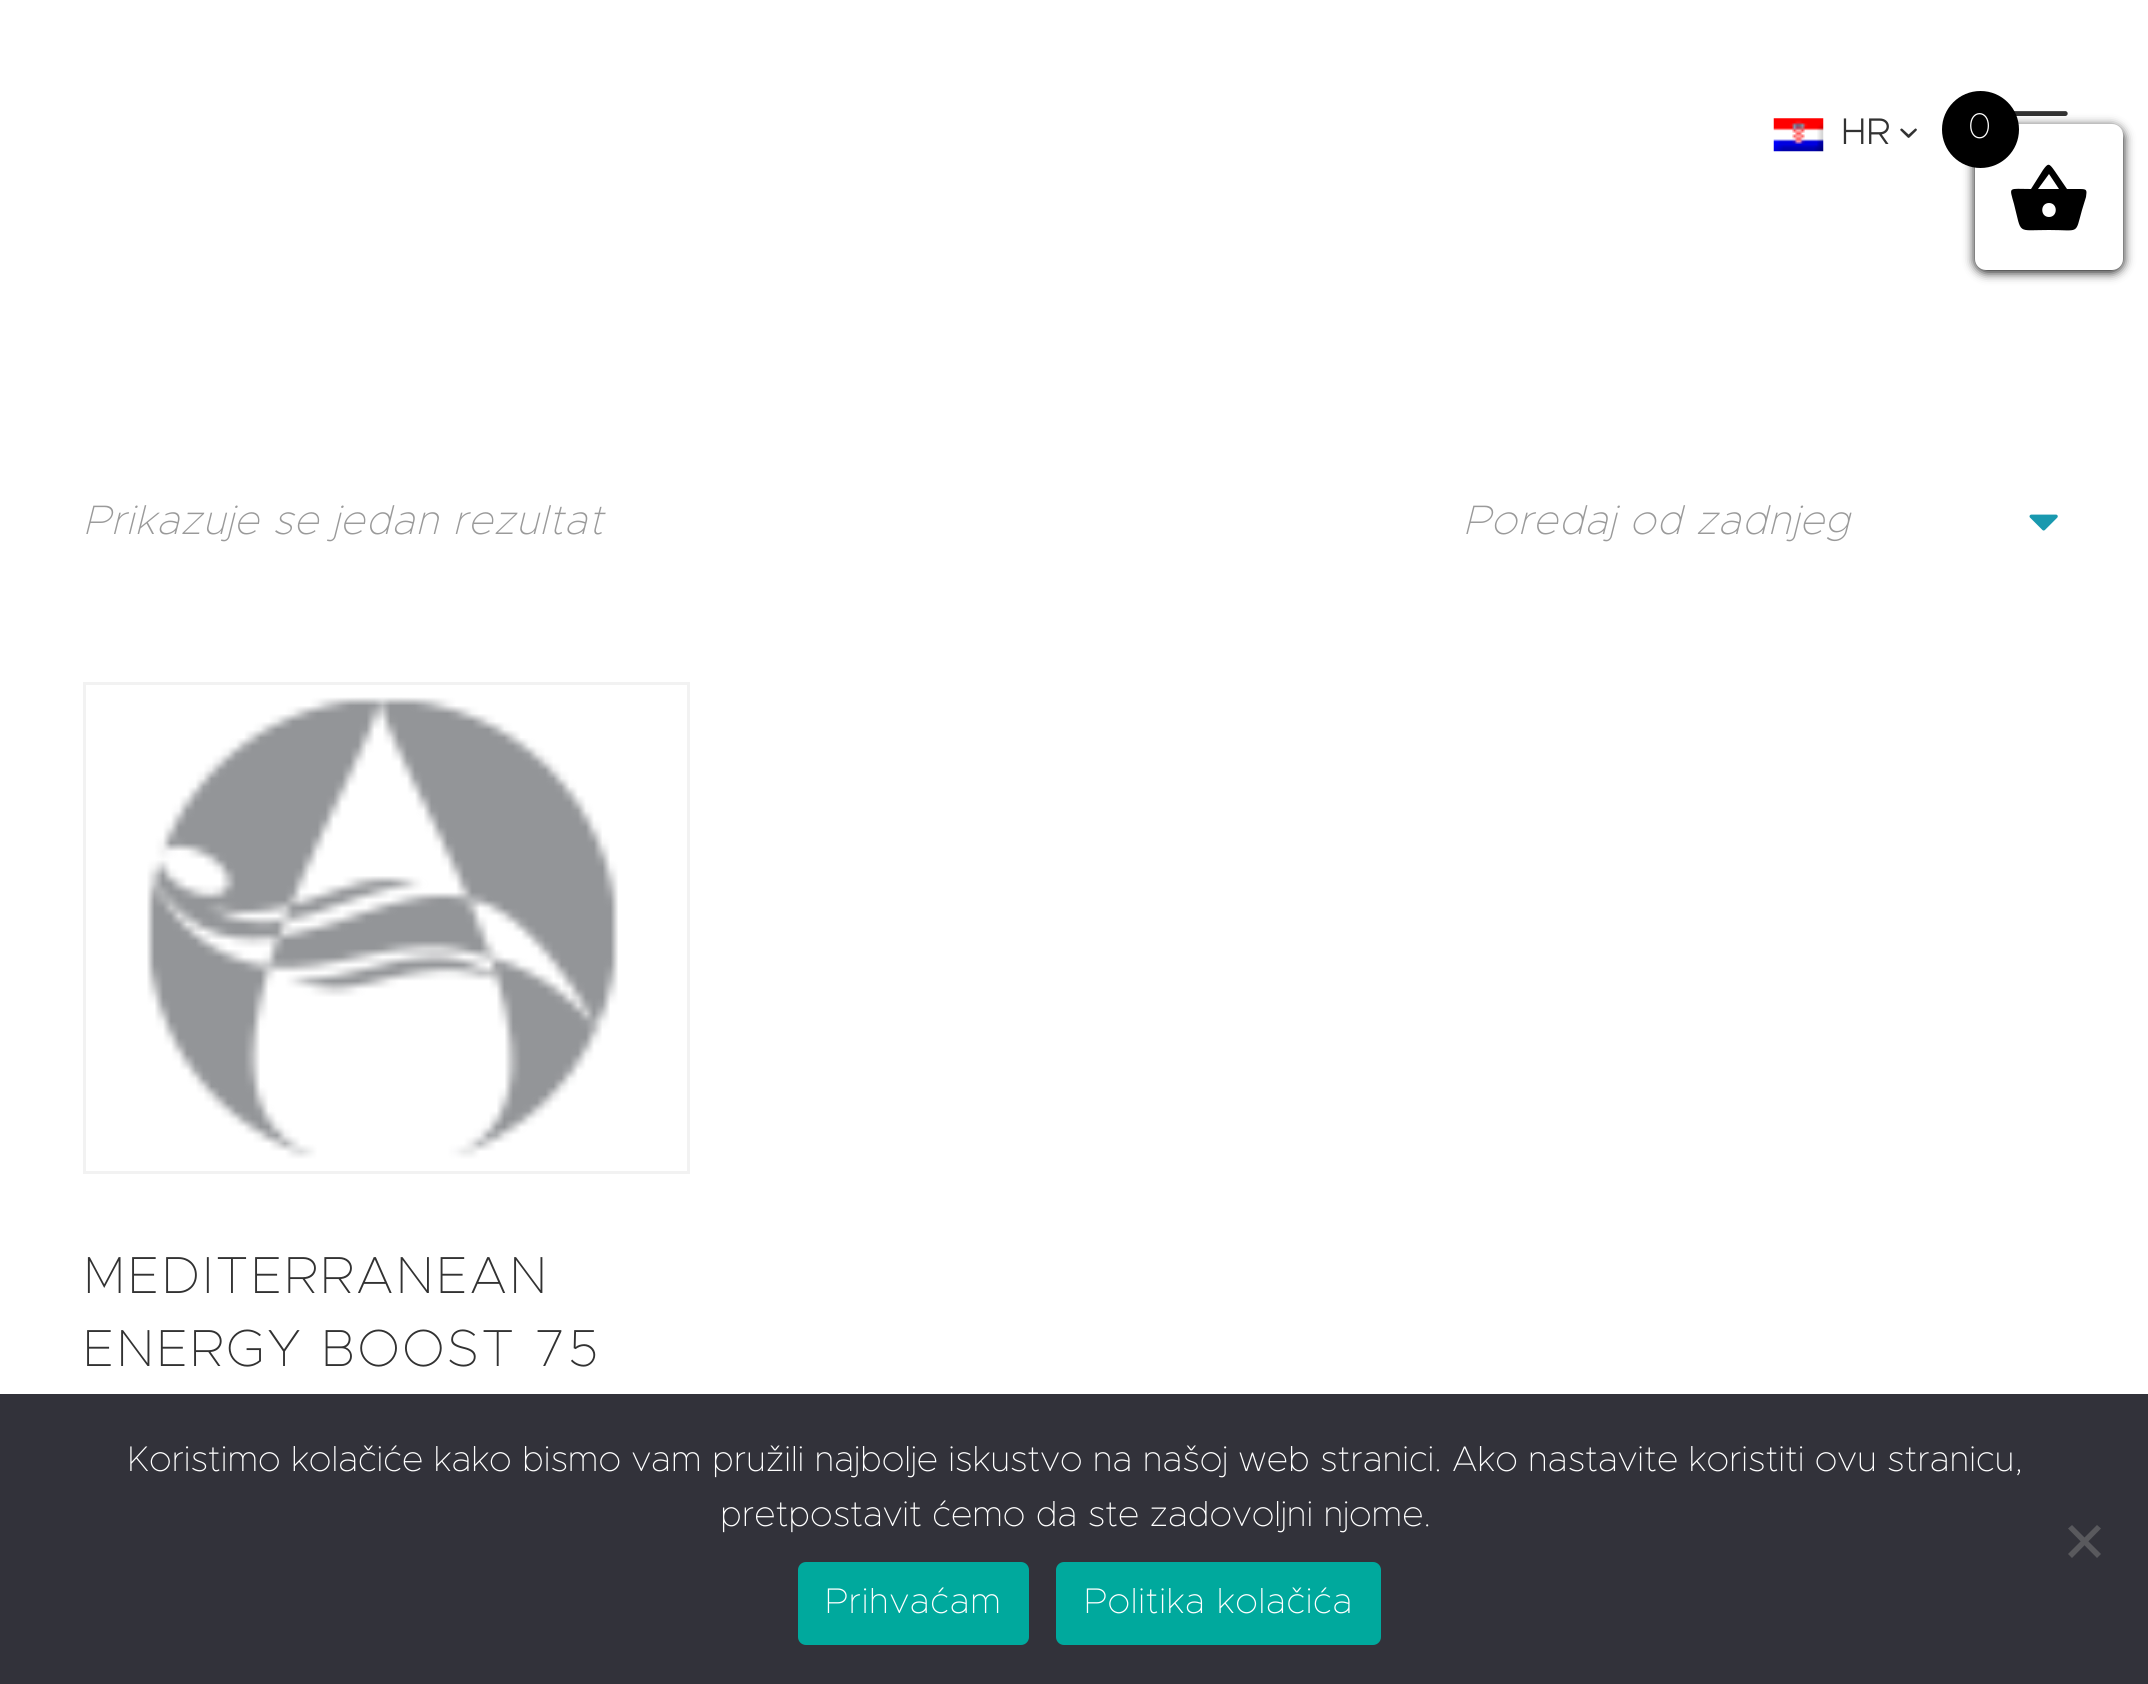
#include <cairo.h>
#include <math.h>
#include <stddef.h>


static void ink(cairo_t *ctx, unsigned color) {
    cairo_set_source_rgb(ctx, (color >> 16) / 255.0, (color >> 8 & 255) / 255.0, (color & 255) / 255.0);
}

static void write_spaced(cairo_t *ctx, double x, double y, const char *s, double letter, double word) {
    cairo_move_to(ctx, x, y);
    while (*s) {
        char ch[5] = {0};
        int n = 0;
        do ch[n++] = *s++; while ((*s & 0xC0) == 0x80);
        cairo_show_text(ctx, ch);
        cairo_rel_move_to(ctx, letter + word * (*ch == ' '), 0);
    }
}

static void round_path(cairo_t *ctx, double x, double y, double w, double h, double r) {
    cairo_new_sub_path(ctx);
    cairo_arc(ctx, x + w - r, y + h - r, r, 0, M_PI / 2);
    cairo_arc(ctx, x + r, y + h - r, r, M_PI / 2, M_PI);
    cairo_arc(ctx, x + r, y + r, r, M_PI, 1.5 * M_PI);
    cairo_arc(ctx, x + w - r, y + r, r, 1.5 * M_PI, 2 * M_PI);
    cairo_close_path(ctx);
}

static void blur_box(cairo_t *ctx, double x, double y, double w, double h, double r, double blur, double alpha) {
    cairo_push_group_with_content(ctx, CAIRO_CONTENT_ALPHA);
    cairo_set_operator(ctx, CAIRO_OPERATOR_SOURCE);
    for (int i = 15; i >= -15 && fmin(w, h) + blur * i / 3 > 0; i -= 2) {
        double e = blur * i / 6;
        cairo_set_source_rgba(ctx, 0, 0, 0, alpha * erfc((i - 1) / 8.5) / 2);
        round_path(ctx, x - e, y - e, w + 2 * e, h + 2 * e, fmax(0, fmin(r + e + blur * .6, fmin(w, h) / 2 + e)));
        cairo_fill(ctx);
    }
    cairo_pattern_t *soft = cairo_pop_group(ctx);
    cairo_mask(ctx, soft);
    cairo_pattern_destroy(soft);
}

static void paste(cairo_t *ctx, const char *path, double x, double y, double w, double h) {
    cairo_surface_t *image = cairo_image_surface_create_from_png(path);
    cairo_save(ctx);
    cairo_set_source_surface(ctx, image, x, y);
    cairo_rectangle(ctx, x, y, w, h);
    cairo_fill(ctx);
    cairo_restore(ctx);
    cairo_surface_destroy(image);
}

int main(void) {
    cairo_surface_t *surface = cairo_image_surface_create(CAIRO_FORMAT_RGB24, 2148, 1684);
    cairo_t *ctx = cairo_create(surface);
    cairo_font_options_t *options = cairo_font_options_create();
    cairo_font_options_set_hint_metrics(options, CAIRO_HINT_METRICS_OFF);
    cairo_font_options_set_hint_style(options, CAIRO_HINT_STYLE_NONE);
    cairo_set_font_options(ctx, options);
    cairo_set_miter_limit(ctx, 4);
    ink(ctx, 0xFFFFFF);
    cairo_paint(ctx);
    paste(ctx, "media/1.png", 2014, 111, 54, 5);
    paste(ctx, "media/2.png", 1773, 118, 51, 34);
    cairo_select_font_face(ctx, "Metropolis", CAIRO_FONT_SLANT_NORMAL, CAIRO_FONT_WEIGHT_BOLD);
    cairo_set_font_size(ctx, 35.75);
    ink(ctx, 0x323232);
    write_spaced(ctx, 1841, 144, "HR", 1, 0);
    paste(ctx, "media/3.png", 1900, 128, 17, 10);
    cairo_select_font_face(ctx, "Metropolis Thin", CAIRO_FONT_SLANT_ITALIC, CAIRO_FONT_WEIGHT_NORMAL);
    cairo_set_font_size(ctx, 41.25);
    ink(ctx, 0x9A9A9A);
    write_spaced(ctx, 83, 534, "Prikazuje se jedan rezultat", 1.05, 0);
    write_spaced(ctx, 1463, 534, "Poredaj od zadnjeg", 1.05, 0);
    paste(ctx, "media/4.png", 2029, 514, 29, 17);
    cairo_rectangle(ctx, 84.5, 683.5, 604, 489);
    ink(ctx, 0xF2F2F2);
    cairo_set_line_width(ctx, 3);
    cairo_stroke(ctx);
    paste(ctx, "media/5.png", 147, 697, 471, 462);
    cairo_select_font_face(ctx, "Metropolis Thin", CAIRO_FONT_SLANT_NORMAL, CAIRO_FONT_WEIGHT_NORMAL);
    cairo_set_font_size(ctx, 52.25);
    ink(ctx, 0x323232);
    write_spaced(ctx, 83, 1293, "MEDITERRANEAN", 2.6, 0);
    write_spaced(ctx, 83, 1366, "ENERGY BOOST 75", 2.6, 0);
    ink(ctx, 0x000000);
    blur_box(ctx, 1975, 127, 148, 145, 11, 5.5, 1);
    ink(ctx, 0xFFFFFF);
    round_path(ctx, 1975, 124, 148, 146, 11);
    cairo_fill(ctx);
    ink(ctx, 0x000000);
    cairo_arc(ctx, 1980.5, 129.5, 38.5, 0, 2 * M_PI);
    cairo_fill(ctx);
    cairo_set_font_size(ctx, 35.75);
    ink(ctx, 0xFFFFFF);
    cairo_move_to(ctx, 1968, 138);
    cairo_show_text(ctx, "0");
    ink(ctx, 0x000000);
    cairo_new_path(ctx);
    cairo_move_to(ctx, 2049, 217);
    cairo_curve_to(ctx, 2058, 217, 2058, 203, 2049, 203);
    cairo_curve_to(ctx, 2040, 203, 2040, 217, 2049, 217);
    cairo_close_path(ctx);
    cairo_move_to(ctx, 2038, 189);
    cairo_line_to(ctx, 2059, 189);
    cairo_line_to(ctx, 2049, 174);
    cairo_close_path(ctx);
    cairo_move_to(ctx, 2067, 189);
    cairo_line_to(ctx, 2080, 189);
    cairo_curve_to(ctx, 2087, 189, 2087, 190, 2086, 197);
    cairo_line_to(ctx, 2082, 210);
    cairo_curve_to(ctx, 2075, 235, 2080, 230, 2049, 230);
    cairo_curve_to(ctx, 2016, 230, 2022, 235, 2014, 204);
    cairo_curve_to(ctx, 2009, 186, 2008, 189, 2031, 189);
    cairo_line_to(ctx, 2043, 170);
    cairo_curve_to(ctx, 2048, 163, 2049, 163, 2054, 170);
    cairo_close_path(ctx);
    cairo_fill(ctx);
    ink(ctx, 0x32323A);
    cairo_rectangle(ctx, 0, 1394, 2148, 290);
    cairo_fill(ctx);
    ink(ctx, 0xFFFFFF);
    cairo_move_to(ctx, 127, 1471);
    cairo_show_text(ctx, "Koristimo kolačiće kako bismo vam pružili najbolje iskustvo na našoj web stranici. Ako nastavite koristiti ovu stranicu,");
    cairo_move_to(ctx, 720, 1526);
    cairo_show_text(ctx, "pretpostavit ćemo da ste zadovoljni njome.");
    ink(ctx, 0x59595D);
    cairo_new_path(ctx);
    cairo_move_to(ctx, 2097, 1525);
    cairo_line_to(ctx, 2101, 1528.5);
    cairo_line_to(ctx, 2072, 1558);
    cairo_line_to(ctx, 2068, 1554);
    cairo_close_path(ctx);
    cairo_fill(ctx);
    cairo_new_path(ctx);
    cairo_move_to(ctx, 2068, 1528.5);
    cairo_line_to(ctx, 2072, 1525);
    cairo_line_to(ctx, 2101, 1554);
    cairo_line_to(ctx, 2097, 1558);
    cairo_close_path(ctx);
    cairo_fill(ctx);
    ink(ctx, 0x00A99D);
    round_path(ctx, 798, 1562, 231, 83, 8);
    cairo_fill(ctx);
    ink(ctx, 0xFFFFFF);
    write_spaced(ctx, 825, 1613, "Prihvaćam", 0.7, 0);
    ink(ctx, 0x00A99D);
    round_path(ctx, 1056, 1562, 325, 83, 8);
    cairo_fill(ctx);
    ink(ctx, 0xFFFFFF);
    write_spaced(ctx, 1084, 1613, "Politika kolačića", 0.7, 0);
    cairo_surface_write_to_png(surface, "image.png");
    cairo_font_options_destroy(options);
    cairo_destroy(ctx);
    cairo_surface_destroy(surface);
    return 0;
}
